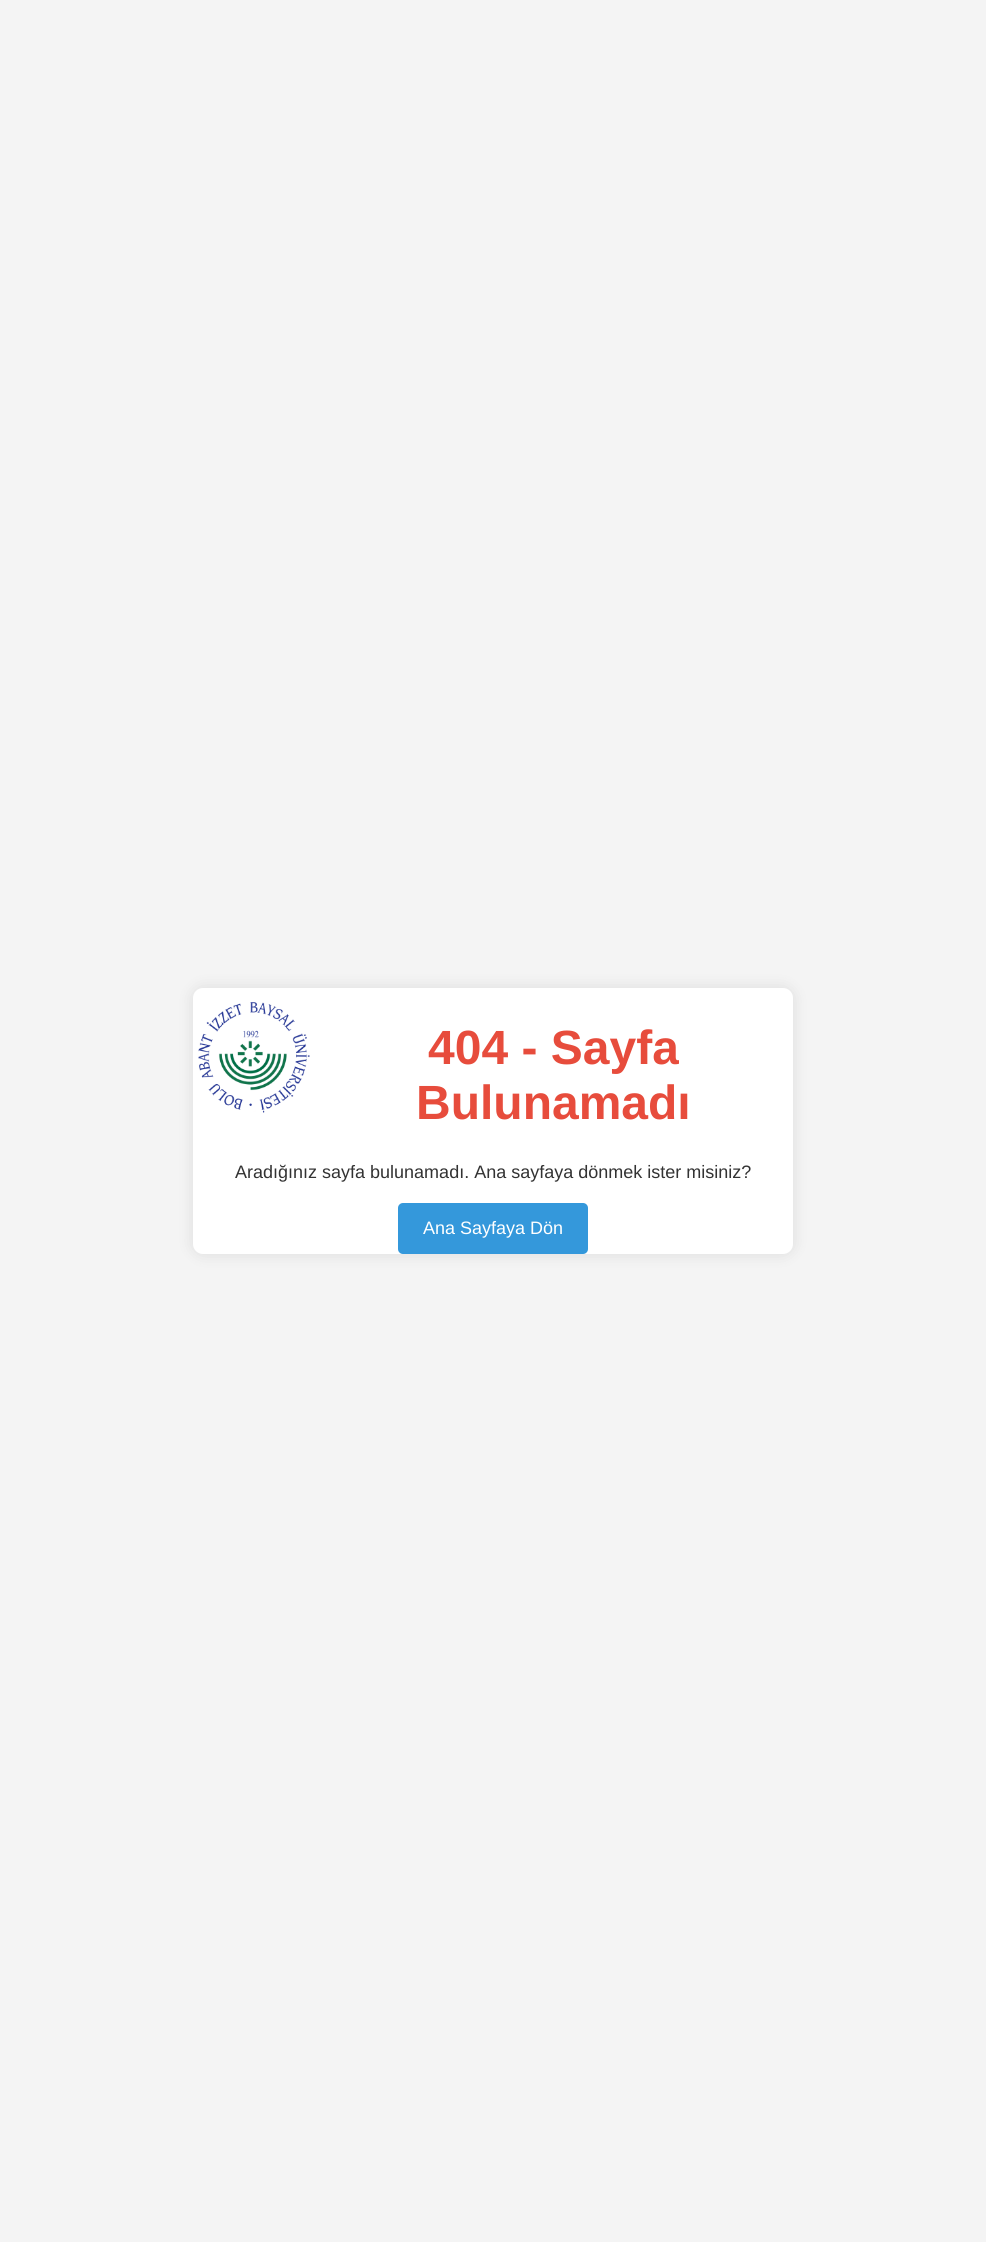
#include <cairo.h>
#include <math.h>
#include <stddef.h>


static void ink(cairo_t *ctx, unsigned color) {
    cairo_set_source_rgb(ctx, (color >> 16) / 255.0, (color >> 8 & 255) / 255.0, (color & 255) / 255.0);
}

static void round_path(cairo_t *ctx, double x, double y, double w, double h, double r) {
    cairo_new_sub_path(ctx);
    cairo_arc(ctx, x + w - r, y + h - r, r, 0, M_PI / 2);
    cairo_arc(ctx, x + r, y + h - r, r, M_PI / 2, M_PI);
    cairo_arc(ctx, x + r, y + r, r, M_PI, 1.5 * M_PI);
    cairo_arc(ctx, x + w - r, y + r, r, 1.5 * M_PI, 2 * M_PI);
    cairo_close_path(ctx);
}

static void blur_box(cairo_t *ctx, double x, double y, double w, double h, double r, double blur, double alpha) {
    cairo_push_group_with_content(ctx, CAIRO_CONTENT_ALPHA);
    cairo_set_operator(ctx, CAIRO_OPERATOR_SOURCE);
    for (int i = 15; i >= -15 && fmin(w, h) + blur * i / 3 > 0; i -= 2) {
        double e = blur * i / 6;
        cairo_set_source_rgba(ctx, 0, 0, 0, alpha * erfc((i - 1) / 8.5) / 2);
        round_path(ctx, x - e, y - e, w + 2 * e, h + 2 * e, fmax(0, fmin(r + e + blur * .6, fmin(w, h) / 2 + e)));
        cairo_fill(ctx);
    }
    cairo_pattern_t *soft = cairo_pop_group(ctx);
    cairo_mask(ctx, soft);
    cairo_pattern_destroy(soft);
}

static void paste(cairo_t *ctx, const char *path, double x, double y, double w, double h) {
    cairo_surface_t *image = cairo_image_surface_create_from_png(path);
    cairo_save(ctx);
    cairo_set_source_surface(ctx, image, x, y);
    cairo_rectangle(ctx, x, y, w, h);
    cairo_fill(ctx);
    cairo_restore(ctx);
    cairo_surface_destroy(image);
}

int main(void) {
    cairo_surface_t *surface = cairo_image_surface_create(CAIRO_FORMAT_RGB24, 986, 2242);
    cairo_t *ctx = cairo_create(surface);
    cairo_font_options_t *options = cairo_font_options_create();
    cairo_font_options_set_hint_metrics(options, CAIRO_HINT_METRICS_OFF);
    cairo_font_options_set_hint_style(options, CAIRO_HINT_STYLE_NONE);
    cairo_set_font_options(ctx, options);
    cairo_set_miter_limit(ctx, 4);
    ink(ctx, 0xF4F4F4);
    cairo_paint(ctx);
    ink(ctx, 0x000000);
    blur_box(ctx, 193, 988, 600, 266, 10, 7.5, 0.1);
    ink(ctx, 0xFFFFFF);
    round_path(ctx, 193, 988, 600, 266, 10);
    cairo_fill(ctx);
    paste(ctx, "media/1.png", 198, 1002, 112, 111);
    cairo_select_font_face(ctx, "Liberation Sans", CAIRO_FONT_SLANT_NORMAL, CAIRO_FONT_WEIGHT_BOLD);
    cairo_set_font_size(ctx, 48);
    ink(ctx, 0xE74C3C);
    cairo_move_to(ctx, 428, 1064);
    cairo_show_text(ctx, "404 - Sayfa");
    cairo_move_to(ctx, 416, 1119);
    cairo_show_text(ctx, "Bulunamadı");
    cairo_select_font_face(ctx, "Liberation Sans", CAIRO_FONT_SLANT_NORMAL, CAIRO_FONT_WEIGHT_NORMAL);
    cairo_set_font_size(ctx, 18);
    ink(ctx, 0x333333);
    cairo_move_to(ctx, 235, 1178);
    cairo_show_text(ctx, "Aradığınız sayfa bulunamadı. Ana sayfaya dönmek ister misiniz?");
    ink(ctx, 0x3498DB);
    round_path(ctx, 398, 1203, 190, 51, 5);
    cairo_fill(ctx);
    ink(ctx, 0xFFFFFF);
    cairo_move_to(ctx, 423, 1234);
    cairo_show_text(ctx, "Ana Sayfaya Dön");
    cairo_surface_write_to_png(surface, "image.png");
    cairo_font_options_destroy(options);
    cairo_destroy(ctx);
    cairo_surface_destroy(surface);
    return 0;
}
